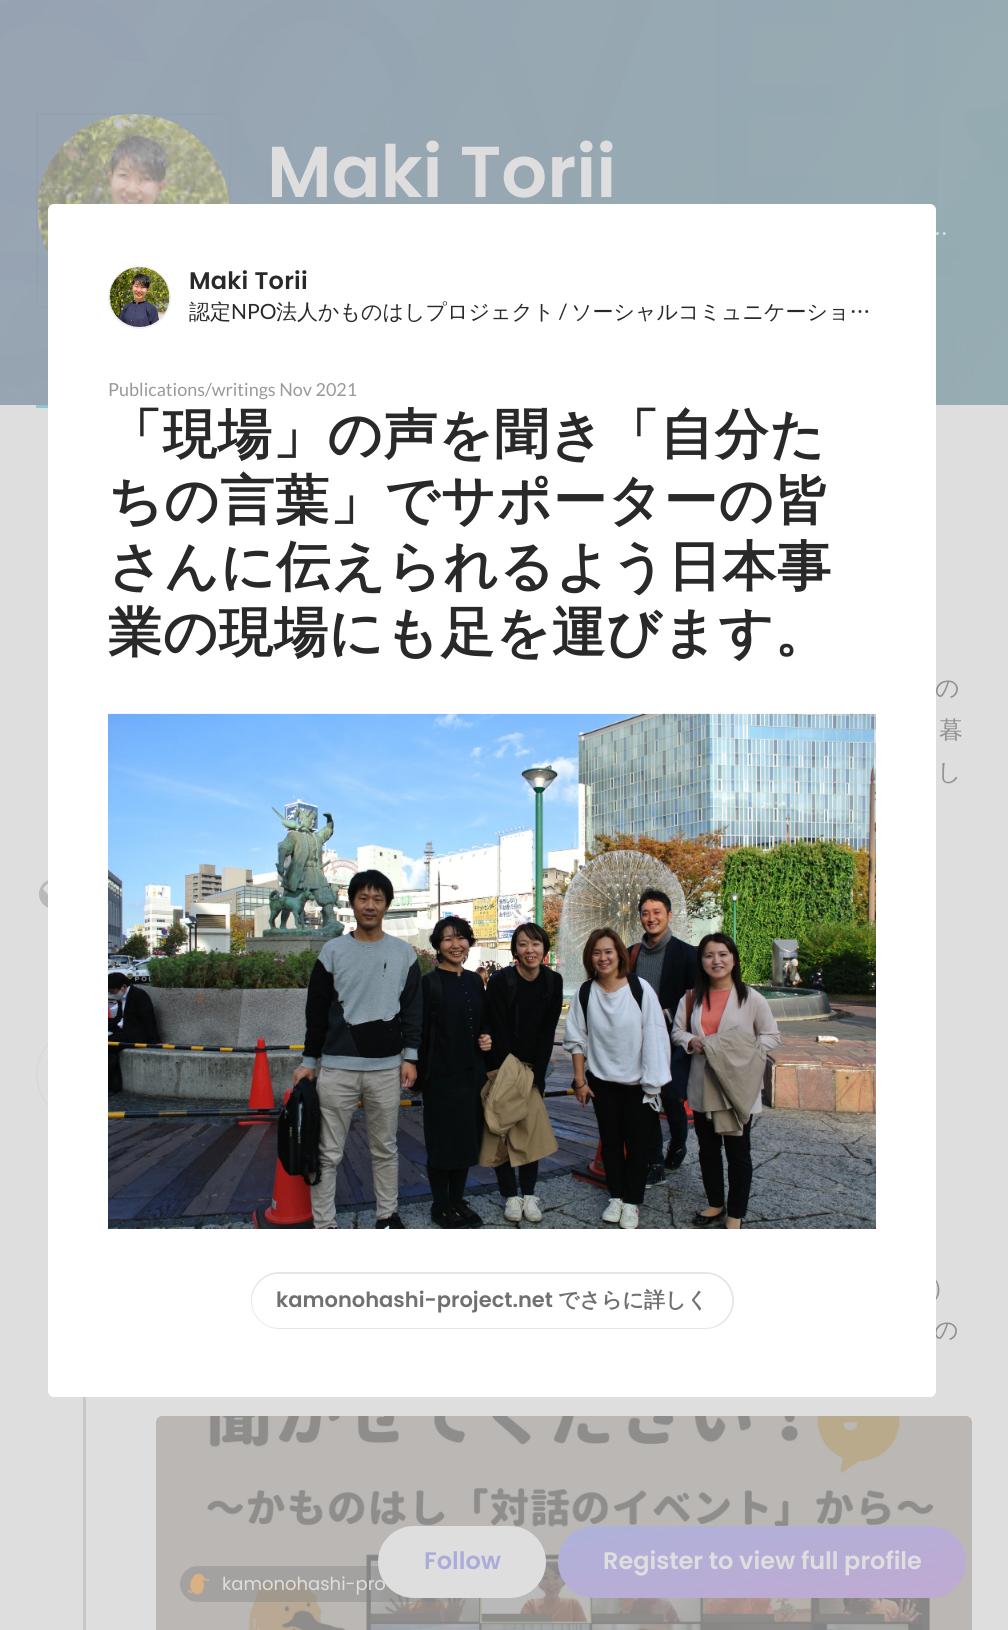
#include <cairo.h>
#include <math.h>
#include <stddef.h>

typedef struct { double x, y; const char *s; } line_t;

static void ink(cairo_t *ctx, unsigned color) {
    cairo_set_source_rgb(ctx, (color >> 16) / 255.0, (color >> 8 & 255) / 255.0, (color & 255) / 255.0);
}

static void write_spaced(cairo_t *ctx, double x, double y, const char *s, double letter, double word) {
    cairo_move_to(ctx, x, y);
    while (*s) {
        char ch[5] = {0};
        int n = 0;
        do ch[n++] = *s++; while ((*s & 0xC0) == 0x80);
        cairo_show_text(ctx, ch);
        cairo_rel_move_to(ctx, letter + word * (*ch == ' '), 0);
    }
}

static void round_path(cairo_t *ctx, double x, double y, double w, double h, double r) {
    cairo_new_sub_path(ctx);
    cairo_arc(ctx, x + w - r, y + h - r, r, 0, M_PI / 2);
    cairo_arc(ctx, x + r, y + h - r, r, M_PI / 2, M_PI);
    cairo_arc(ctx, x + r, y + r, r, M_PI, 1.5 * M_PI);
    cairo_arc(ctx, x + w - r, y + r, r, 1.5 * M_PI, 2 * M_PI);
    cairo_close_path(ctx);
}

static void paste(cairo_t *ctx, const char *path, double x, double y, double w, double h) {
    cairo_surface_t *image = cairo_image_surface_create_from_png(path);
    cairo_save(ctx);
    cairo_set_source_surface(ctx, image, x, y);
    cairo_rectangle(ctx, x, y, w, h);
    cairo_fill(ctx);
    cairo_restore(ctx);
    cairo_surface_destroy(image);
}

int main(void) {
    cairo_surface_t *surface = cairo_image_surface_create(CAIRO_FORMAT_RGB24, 1008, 1630);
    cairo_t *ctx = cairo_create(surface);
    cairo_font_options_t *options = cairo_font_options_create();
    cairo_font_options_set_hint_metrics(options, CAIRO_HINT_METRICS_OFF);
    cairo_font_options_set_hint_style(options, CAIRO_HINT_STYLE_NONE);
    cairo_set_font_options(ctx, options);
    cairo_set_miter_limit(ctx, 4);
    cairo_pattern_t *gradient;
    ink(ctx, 0xDEDEDE);
    cairo_paint(ctx);
    paste(ctx, "media/1.png", 0, 0, 1008, 405);
    cairo_rectangle(ctx, 37, 114, 193, 193);
    cairo_set_source_rgba(ctx, 0.514, 0.514, 0.514, 0.06);
    cairo_stroke(ctx);
    paste(ctx, "media/2.png", 37, 114, 193, 140);
    cairo_select_font_face(ctx, "Poppins SemiBold", CAIRO_FONT_SLANT_NORMAL, CAIRO_FONT_WEIGHT_NORMAL);
    cairo_set_font_size(ctx, 72);
    ink(ctx, 0xDEDEDE);
    cairo_move_to(ctx, 267, 197);
    cairo_show_text(ctx, "Maki Torii");
    cairo_select_font_face(ctx, "WenQuanYi Zen Hei Medium", CAIRO_FONT_SLANT_NORMAL, CAIRO_FONT_WEIGHT_NORMAL);
    cairo_set_font_size(ctx, 21);
    cairo_move_to(ctx, 927, 241);
    cairo_show_text(ctx, "…");
    ink(ctx, 0x8EC7D1);
    cairo_rectangle(ctx, 36, 405, 12, 3);
    cairo_fill(ctx);
    paste(ctx, "media/6.png", 156, 1416, 816, 214);
    cairo_set_source_rgba(ctx, 0.514, 0.514, 0.514, 0.4);
    round_path(ctx, 180, 1566, 290, 36, 18);
    cairo_fill(ctx);
    ink(ctx, 0xDEDEDE);
    round_path(ctx, 378, 1526, 168, 72, 36);
    cairo_fill(ctx);
    cairo_select_font_face(ctx, "Poppins SemiBold", CAIRO_FONT_SLANT_NORMAL, CAIRO_FONT_WEIGHT_NORMAL);
    cairo_set_font_size(ctx, 24);
    ink(ctx, 0xACACDA);
    cairo_move_to(ctx, 424, 1569);
    cairo_show_text(ctx, "Follow");
    gradient = cairo_pattern_create_linear(750, 1492, 774, 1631);
    cairo_pattern_add_color_stop_rgba(gradient, 0, 0.682, 0.698, 0.855, 1);
    cairo_pattern_add_color_stop_rgba(gradient, 1, 0.753, 0.663, 0.82, 1);
    cairo_set_source(ctx, gradient);
    cairo_pattern_destroy(gradient);
    round_path(ctx, 558, 1526, 408, 72, 36);
    cairo_fill(ctx);
    ink(ctx, 0xDEDEDE);
    cairo_move_to(ctx, 603, 1569);
    cairo_show_text(ctx, "Register to view full profile");
    cairo_new_path(ctx);
    cairo_arc(ctx, 85.5, 1074.5, 48.5, 0, 2 * M_PI);
    ink(ctx, 0xD9D9D9);
    cairo_stroke(ctx);
    cairo_select_font_face(ctx, "WenQuanYi Zen Hei Medium", CAIRO_FONT_SLANT_NORMAL, CAIRO_FONT_WEIGHT_NORMAL);
    ink(ctx, 0x919191);
    cairo_move_to(ctx, 931, 1296);
    cairo_show_text(ctx, "）");
    cairo_move_to(ctx, 934, 1338);
    cairo_show_text(ctx, "の");
    ink(ctx, 0xFFFFFF);
    round_path(ctx, 48, 204, 888, 1193, 6);
    cairo_fill(ctx);
    cairo_arc(ctx, 139.5, 297.5, 30.5, 0, 2 * M_PI);
    ink(ctx, 0xF0F0F0);
    cairo_stroke(ctx);
    paste(ctx, "media/3.png", 109, 267, 61, 60);
    cairo_select_font_face(ctx, "Poppins SemiBold", CAIRO_FONT_SLANT_NORMAL, CAIRO_FONT_WEIGHT_NORMAL);
    ink(ctx, 0x292929);
    write_spaced(ctx, 189, 289, "Maki Torii", 0.25, 0);
    cairo_select_font_face(ctx, "WenQuanYi Zen Hei Medium", CAIRO_FONT_SLANT_NORMAL, CAIRO_FONT_WEIGHT_NORMAL);
    cairo_set_font_size(ctx, 21);
    cairo_move_to(ctx, 189, 319);
    cairo_show_text(ctx, "認定");
    cairo_select_font_face(ctx, "Lato", CAIRO_FONT_SLANT_NORMAL, CAIRO_FONT_WEIGHT_NORMAL);
    cairo_move_to(ctx, 231, 319);
    cairo_show_text(ctx, "NPO");
    cairo_select_font_face(ctx, "WenQuanYi Zen Hei Medium", CAIRO_FONT_SLANT_NORMAL, CAIRO_FONT_WEIGHT_NORMAL);
    cairo_move_to(ctx, 276, 319);
    cairo_show_text(ctx, "法人かものはしプロジェクト");
    cairo_select_font_face(ctx, "Lato", CAIRO_FONT_SLANT_NORMAL, CAIRO_FONT_WEIGHT_NORMAL);
    cairo_move_to(ctx, 559, 319);
    cairo_show_text(ctx, "/");
    cairo_select_font_face(ctx, "WenQuanYi Zen Hei Medium", CAIRO_FONT_SLANT_NORMAL, CAIRO_FONT_WEIGHT_NORMAL);
    cairo_move_to(ctx, 571, 319);
    cairo_show_text(ctx, "ソーシャルコミュニケーショ…");
    cairo_select_font_face(ctx, "Lato", CAIRO_FONT_SLANT_NORMAL, CAIRO_FONT_WEIGHT_NORMAL);
    cairo_set_font_size(ctx, 18);
    ink(ctx, 0x999999);
    cairo_move_to(ctx, 108, 396);
    cairo_show_text(ctx, "Publications/writings Nov 2021");
    cairo_select_font_face(ctx, "WenQuanYi Zen Hei", CAIRO_FONT_SLANT_NORMAL, CAIRO_FONT_WEIGHT_BOLD);
    cairo_set_font_size(ctx, 54);
    ink(ctx, 0x292929);
    {
        static const line_t items[] = {
            {108, 453, "「現場」の声を聞き「自分た"},
            {108, 519, "ちの言葉」でサポーターの皆"},
            {108, 585, "さんに伝えられるよう日本事"},
            {108, 651, "業の現場にも足を運びます。"},
        };
        for (size_t i = 0; i < sizeof items / sizeof *items; i++) {
            write_spaced(ctx, items[i].x, items[i].y, items[i].s, 0.8, 0);
        }
    }
    paste(ctx, "media/4.png", 108, 713, 768, 516);
    round_path(ctx, 252, 1273, 481, 55, 27.5);
    ink(ctx, 0xE6E6E6);
    cairo_stroke(ctx);
    ink(ctx, 0xFFFFFF);
    round_path(ctx, 252, 1274, 480, 54, 27);
    cairo_fill(ctx);
    cairo_select_font_face(ctx, "Poppins SemiBold", CAIRO_FONT_SLANT_NORMAL, CAIRO_FONT_WEIGHT_NORMAL);
    cairo_set_font_size(ctx, 21);
    ink(ctx, 0x707070);
    cairo_move_to(ctx, 276, 1307);
    cairo_show_text(ctx, "kamonohashi-project.net");
    cairo_select_font_face(ctx, "WenQuanYi Zen Hei", CAIRO_FONT_SLANT_NORMAL, CAIRO_FONT_WEIGHT_BOLD);
    cairo_move_to(ctx, 558, 1307);
    cairo_show_text(ctx, "でさらに詳しく");
    cairo_select_font_face(ctx, "WenQuanYi Zen Hei Medium", CAIRO_FONT_SLANT_NORMAL, CAIRO_FONT_WEIGHT_NORMAL);
    cairo_set_font_size(ctx, 24);
    ink(ctx, 0x919191);
    cairo_move_to(ctx, 935, 696);
    cairo_show_text(ctx, "の");
    write_spaced(ctx, 939, 738, "暮", 0, -3);
    cairo_move_to(ctx, 937, 780);
    cairo_show_text(ctx, "し");
    paste(ctx, "media/5.png", 39, 880, 9, 28);
    ink(ctx, 0xC8C8C8);
    cairo_rectangle(ctx, 83, 1397, 3, 233);
    cairo_fill(ctx);
    paste(ctx, "media/7.png", 187, 1573, 23, 22);
    cairo_select_font_face(ctx, "Poppins", CAIRO_FONT_SLANT_NORMAL, CAIRO_FONT_WEIGHT_NORMAL);
    cairo_set_font_size(ctx, 18);
    ink(ctx, 0xDEDEDE);
    cairo_move_to(ctx, 222, 1590);
    cairo_show_text(ctx, "kamonohashi-pro");
    cairo_surface_write_to_png(surface, "image.png");
    cairo_font_options_destroy(options);
    cairo_destroy(ctx);
    cairo_surface_destroy(surface);
    return 0;
}
